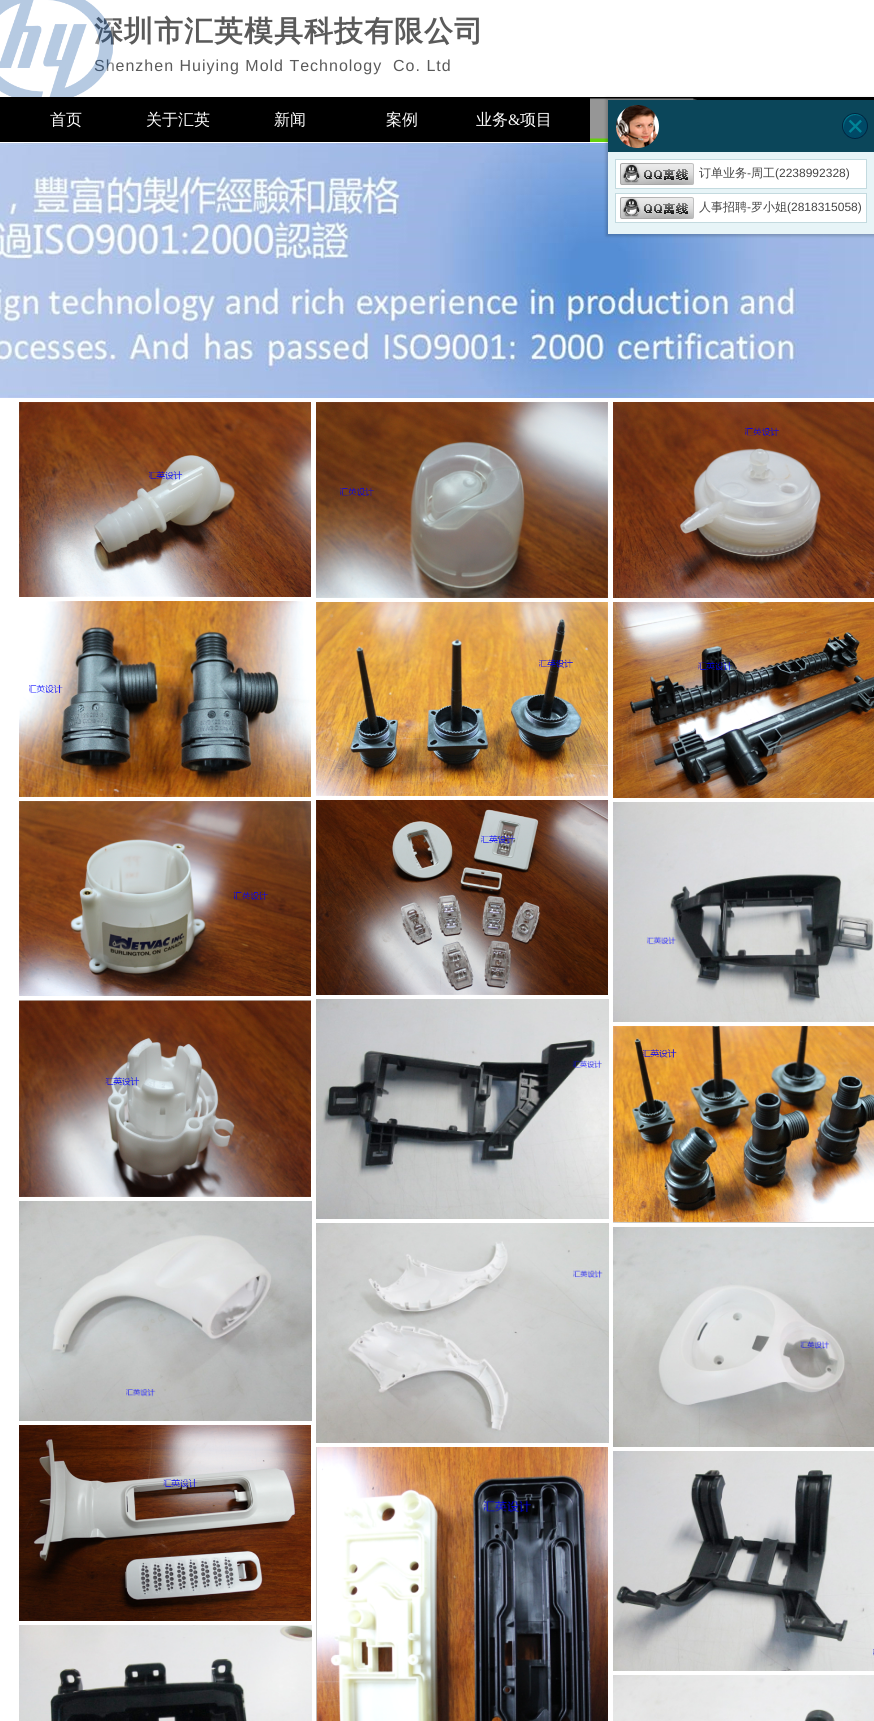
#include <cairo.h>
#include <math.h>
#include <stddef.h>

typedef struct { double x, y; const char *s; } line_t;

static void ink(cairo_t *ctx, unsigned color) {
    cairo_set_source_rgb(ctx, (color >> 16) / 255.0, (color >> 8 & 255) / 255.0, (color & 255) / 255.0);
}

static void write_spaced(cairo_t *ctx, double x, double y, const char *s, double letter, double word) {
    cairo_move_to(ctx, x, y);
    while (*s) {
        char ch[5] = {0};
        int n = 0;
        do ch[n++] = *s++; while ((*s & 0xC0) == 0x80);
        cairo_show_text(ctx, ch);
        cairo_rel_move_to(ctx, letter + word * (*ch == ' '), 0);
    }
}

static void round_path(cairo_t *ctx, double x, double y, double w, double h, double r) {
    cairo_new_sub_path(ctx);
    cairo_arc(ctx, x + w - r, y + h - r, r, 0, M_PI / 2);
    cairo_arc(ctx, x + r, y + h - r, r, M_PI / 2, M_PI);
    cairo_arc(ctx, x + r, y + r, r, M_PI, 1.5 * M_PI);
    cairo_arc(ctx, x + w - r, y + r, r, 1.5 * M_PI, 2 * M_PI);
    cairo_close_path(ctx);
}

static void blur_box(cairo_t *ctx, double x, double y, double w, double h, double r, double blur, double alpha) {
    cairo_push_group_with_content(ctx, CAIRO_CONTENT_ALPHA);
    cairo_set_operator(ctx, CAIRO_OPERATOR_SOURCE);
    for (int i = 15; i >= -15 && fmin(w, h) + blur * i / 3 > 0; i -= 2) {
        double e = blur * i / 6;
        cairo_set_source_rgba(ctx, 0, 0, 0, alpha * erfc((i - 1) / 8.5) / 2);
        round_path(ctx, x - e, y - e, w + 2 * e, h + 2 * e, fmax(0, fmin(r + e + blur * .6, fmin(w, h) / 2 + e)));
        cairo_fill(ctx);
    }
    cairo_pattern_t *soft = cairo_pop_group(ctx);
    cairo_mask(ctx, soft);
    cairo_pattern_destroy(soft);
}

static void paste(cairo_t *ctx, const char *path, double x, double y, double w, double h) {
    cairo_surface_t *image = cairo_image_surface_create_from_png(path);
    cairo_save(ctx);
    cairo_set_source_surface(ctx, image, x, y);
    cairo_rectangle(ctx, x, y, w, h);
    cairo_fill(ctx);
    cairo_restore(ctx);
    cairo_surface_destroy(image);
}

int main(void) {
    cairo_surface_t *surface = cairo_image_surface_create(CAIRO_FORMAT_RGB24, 874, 1721);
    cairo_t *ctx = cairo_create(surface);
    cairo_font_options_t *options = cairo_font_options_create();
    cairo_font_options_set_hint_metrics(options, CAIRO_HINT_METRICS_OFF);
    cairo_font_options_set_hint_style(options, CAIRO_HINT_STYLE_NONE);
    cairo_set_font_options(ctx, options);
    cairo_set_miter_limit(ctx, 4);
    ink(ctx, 0xFFFFFF);
    cairo_paint(ctx);
    cairo_select_font_face(ctx, "WenQuanYi Zen Hei", CAIRO_FONT_SLANT_NORMAL, CAIRO_FONT_WEIGHT_BOLD);
    cairo_set_font_size(ctx, 29);
    ink(ctx, 0x5A5A5A);
    write_spaced(ctx, 94, 41, "深圳市汇英模具科技有限公司", 1, 0);
    cairo_select_font_face(ctx, "Liberation Sans", CAIRO_FONT_SLANT_NORMAL, CAIRO_FONT_WEIGHT_NORMAL);
    cairo_set_font_size(ctx, 16);
    write_spaced(ctx, 94, 71, "Shenzhen Huiying Mold Technology  Co. Ltd", 1, 0);
    paste(ctx, "media/1.png", 0, 0, 113, 97);
    ink(ctx, 0x000000);
    cairo_rectangle(ctx, 0, 97, 874, 45);
    cairo_fill(ctx);
    cairo_select_font_face(ctx, "WenQuanYi Zen Hei Medium", CAIRO_FONT_SLANT_NORMAL, CAIRO_FONT_WEIGHT_NORMAL);
    ink(ctx, 0xFFFFFF);
    {
        static const line_t items[] = {
            {50, 125, "首页"},
            {146, 125, "关于汇英"},
            {274, 125, "新闻"},
            {386, 125, "案例"},
            {476, 125, "业务"},
        };
        for (size_t i = 0; i < sizeof items / sizeof *items; i++) {
            cairo_move_to(ctx, items[i].x, items[i].y);
            cairo_show_text(ctx, items[i].s);
        }
    }
    cairo_select_font_face(ctx, "Liberation Serif", CAIRO_FONT_SLANT_NORMAL, CAIRO_FONT_WEIGHT_NORMAL);
    cairo_move_to(ctx, 508, 125);
    cairo_show_text(ctx, "&");
    cairo_select_font_face(ctx, "WenQuanYi Zen Hei Medium", CAIRO_FONT_SLANT_NORMAL, CAIRO_FONT_WEIGHT_NORMAL);
    cairo_move_to(ctx, 520, 125);
    cairo_show_text(ctx, "项目");
    paste(ctx, "media/2.png", 590, 98, 107, 44);
    paste(ctx, "media/3.png", 0, 143, 874, 255);
    paste(ctx, "media/4.png", 19, 402, 292, 195);
    paste(ctx, "media/5.png", 316, 402, 292, 196);
    paste(ctx, "media/6.png", 613, 402, 261, 196);
    paste(ctx, "media/7.png", 19, 601, 292, 196);
    paste(ctx, "media/8.png", 316, 602, 292, 194);
    paste(ctx, "media/9.png", 613, 602, 261, 196);
    paste(ctx, "media/10.png", 19, 801, 292, 195);
    paste(ctx, "media/11.png", 316, 800, 292, 195);
    paste(ctx, "media/12.png", 613, 802, 261, 220);
    paste(ctx, "media/13.png", 19, 1000, 292, 197);
    paste(ctx, "media/14.png", 316, 999, 293, 220);
    paste(ctx, "media/15.png", 613, 1026, 261, 197);
    paste(ctx, "media/16.png", 19, 1201, 293, 220);
    paste(ctx, "media/17.png", 316, 1223, 293, 220);
    paste(ctx, "media/18.png", 613, 1227, 261, 220);
    paste(ctx, "media/19.png", 19, 1425, 292, 196);
    paste(ctx, "media/20.png", 316, 1447, 292, 274);
    paste(ctx, "media/21.png", 613, 1451, 261, 220);
    paste(ctx, "media/22.png", 19, 1625, 293, 96);
    paste(ctx, "media/23.png", 613, 1675, 261, 46);
    ink(ctx, 0x000000);
    blur_box(ctx, 606, 98, 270, 138, 0, 1.5, 0.2);
    ink(ctx, 0x0B465A);
    cairo_rectangle(ctx, 608, 100, 266, 52);
    cairo_fill(ctx);
    paste(ctx, "media/24.png", 616, 105, 43, 43);
    paste(ctx, "media/25.png", 842, 113, 26, 26);
    ink(ctx, 0xE7F4F7);
    cairo_rectangle(ctx, 608, 152, 266, 82);
    cairo_fill(ctx);
    ink(ctx, 0xFFFFFF);
    cairo_rectangle(ctx, 615.5, 159.5, 251, 29);
    cairo_fill_preserve(ctx);
    ink(ctx, 0xC3DADF);
    cairo_set_line_width(ctx, 1);
    cairo_stroke(ctx);
    paste(ctx, "media/26.png", 620, 163, 74, 22);
    cairo_set_font_size(ctx, 12);
    ink(ctx, 0x444444);
    cairo_move_to(ctx, 699, 177);
    cairo_show_text(ctx, "订单业务");
    cairo_select_font_face(ctx, "Liberation Sans", CAIRO_FONT_SLANT_NORMAL, CAIRO_FONT_WEIGHT_NORMAL);
    cairo_move_to(ctx, 747, 177);
    cairo_show_text(ctx, "-");
    cairo_select_font_face(ctx, "WenQuanYi Zen Hei Medium", CAIRO_FONT_SLANT_NORMAL, CAIRO_FONT_WEIGHT_NORMAL);
    cairo_move_to(ctx, 751, 177);
    cairo_show_text(ctx, "周工");
    cairo_select_font_face(ctx, "Liberation Sans", CAIRO_FONT_SLANT_NORMAL, CAIRO_FONT_WEIGHT_NORMAL);
    cairo_move_to(ctx, 775, 177);
    cairo_show_text(ctx, "(2238992328)");
    ink(ctx, 0xFFFFFF);
    cairo_rectangle(ctx, 615.5, 193.5, 251, 29);
    cairo_fill_preserve(ctx);
    ink(ctx, 0xC3DADF);
    cairo_stroke(ctx);
    paste(ctx, "media/26.png", 620, 197, 74, 22);
    cairo_select_font_face(ctx, "WenQuanYi Zen Hei Medium", CAIRO_FONT_SLANT_NORMAL, CAIRO_FONT_WEIGHT_NORMAL);
    ink(ctx, 0x444444);
    cairo_move_to(ctx, 699, 211);
    cairo_show_text(ctx, "人事招聘");
    cairo_select_font_face(ctx, "Liberation Sans", CAIRO_FONT_SLANT_NORMAL, CAIRO_FONT_WEIGHT_NORMAL);
    cairo_move_to(ctx, 747, 211);
    cairo_show_text(ctx, "-");
    cairo_select_font_face(ctx, "WenQuanYi Zen Hei Medium", CAIRO_FONT_SLANT_NORMAL, CAIRO_FONT_WEIGHT_NORMAL);
    cairo_move_to(ctx, 751, 211);
    cairo_show_text(ctx, "罗小姐");
    cairo_select_font_face(ctx, "Liberation Sans", CAIRO_FONT_SLANT_NORMAL, CAIRO_FONT_WEIGHT_NORMAL);
    cairo_move_to(ctx, 787, 211);
    cairo_show_text(ctx, "(2818315058)");
    cairo_surface_write_to_png(surface, "image.png");
    cairo_font_options_destroy(options);
    cairo_destroy(ctx);
    cairo_surface_destroy(surface);
    return 0;
}
